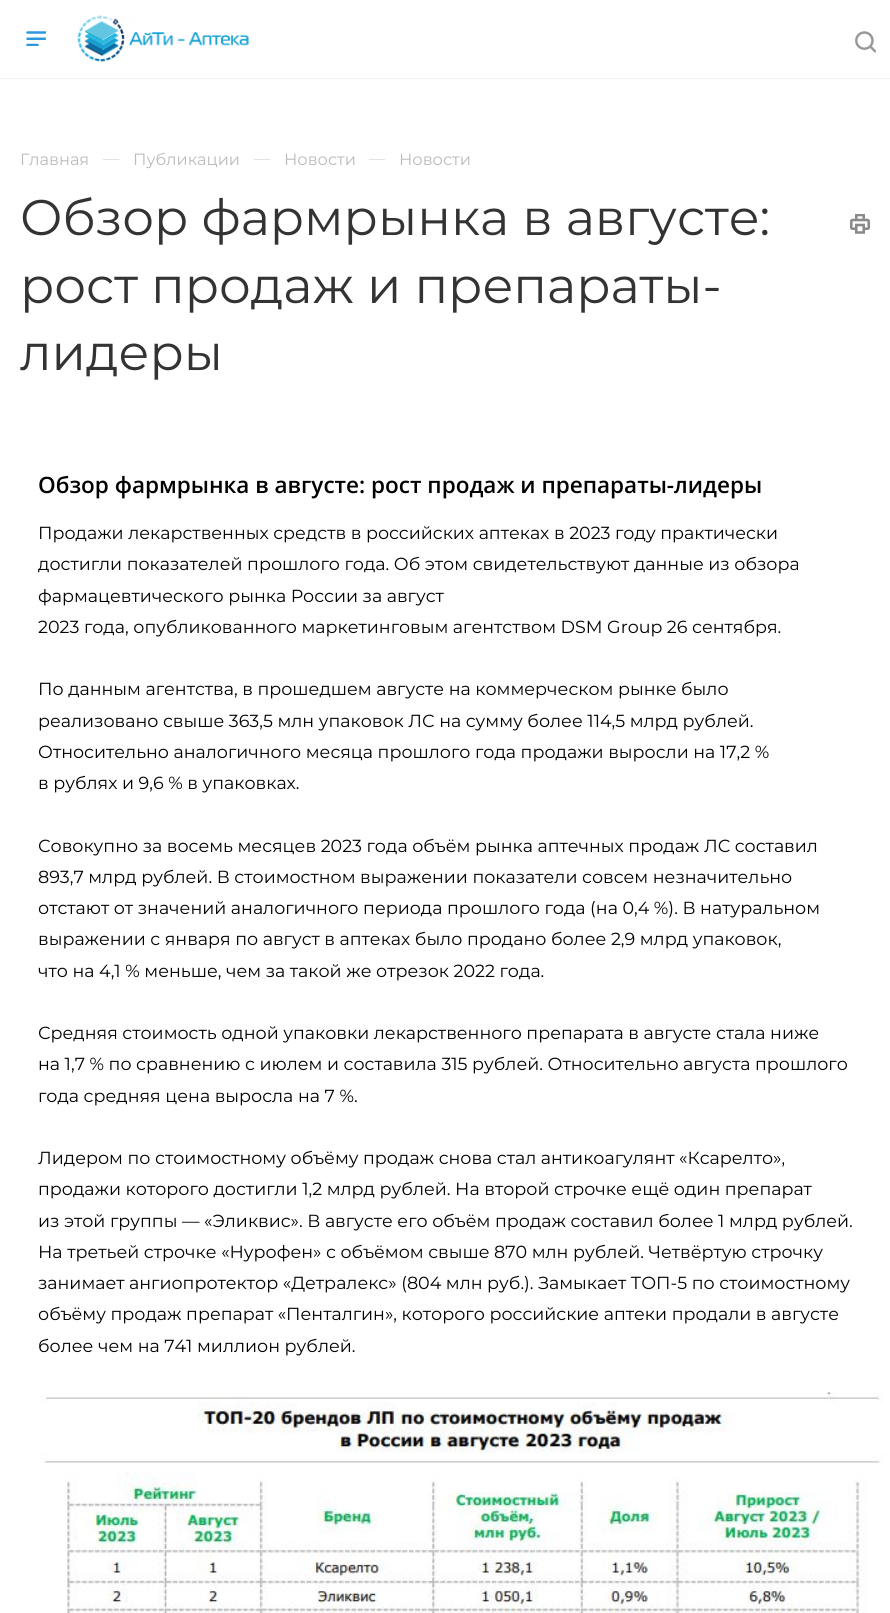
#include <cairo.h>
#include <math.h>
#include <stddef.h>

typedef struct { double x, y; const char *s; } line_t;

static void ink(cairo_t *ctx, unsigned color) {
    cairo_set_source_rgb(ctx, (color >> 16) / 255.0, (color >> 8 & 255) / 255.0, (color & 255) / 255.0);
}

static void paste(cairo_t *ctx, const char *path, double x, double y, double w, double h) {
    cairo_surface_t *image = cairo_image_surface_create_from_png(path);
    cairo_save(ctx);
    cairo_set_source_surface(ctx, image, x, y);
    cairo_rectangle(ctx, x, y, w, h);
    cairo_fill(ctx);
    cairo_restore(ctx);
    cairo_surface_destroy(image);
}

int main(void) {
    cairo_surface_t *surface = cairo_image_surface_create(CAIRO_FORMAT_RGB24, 890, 1613);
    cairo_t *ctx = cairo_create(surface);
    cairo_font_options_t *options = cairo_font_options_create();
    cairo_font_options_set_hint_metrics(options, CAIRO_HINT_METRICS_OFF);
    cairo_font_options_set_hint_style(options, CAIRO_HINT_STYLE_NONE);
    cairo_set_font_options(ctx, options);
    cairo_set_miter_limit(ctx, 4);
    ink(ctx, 0xFFFFFF);
    cairo_paint(ctx);
    ink(ctx, 0xEFF1F5);
    cairo_rectangle(ctx, 0, 78, 890, 1);
    cairo_fill(ctx);
    paste(ctx, "media/1.png", 26, 31, 20, 15);
    paste(ctx, "media/2.png", 77, 15, 172, 47);
    paste(ctx, "media/3.png", 855, 31, 21, 22);
    cairo_select_font_face(ctx, "Montserrat", CAIRO_FONT_SLANT_NORMAL, CAIRO_FONT_WEIGHT_NORMAL);
    cairo_set_font_size(ctx, 16.25);
    ink(ctx, 0xBBBBBB);
    cairo_move_to(ctx, 20, 165);
    cairo_show_text(ctx, "Главная");
    ink(ctx, 0xDDDDDD);
    cairo_move_to(ctx, 103, 164);
    cairo_show_text(ctx, "—");
    ink(ctx, 0xBBBBBB);
    cairo_move_to(ctx, 133, 165);
    cairo_show_text(ctx, "Публикации");
    ink(ctx, 0xDDDDDD);
    cairo_move_to(ctx, 254, 164);
    cairo_show_text(ctx, "—");
    ink(ctx, 0xBBBBBB);
    cairo_move_to(ctx, 284, 165);
    cairo_show_text(ctx, "Новости");
    ink(ctx, 0xDDDDDD);
    cairo_move_to(ctx, 369, 164);
    cairo_show_text(ctx, "—");
    ink(ctx, 0xBBBBBB);
    cairo_move_to(ctx, 399, 165);
    cairo_show_text(ctx, "Новости");
    cairo_set_font_size(ctx, 50);
    ink(ctx, 0x333333);
    {
        static const line_t items[] = {
            {20, 235, "Обзор фармрынка в августе:"},
            {20, 303, "рост продаж и препараты-"},
            {20, 370, "лидеры"},
        };
        for (size_t i = 0; i < sizeof items / sizeof *items; i++) {
            cairo_move_to(ctx, items[i].x, items[i].y);
            cairo_show_text(ctx, items[i].s);
        }
    }
    paste(ctx, "media/4.png", 850, 214, 20, 20);
    paste(ctx, "media/5.png", 850, 214, 20, 20);
    cairo_select_font_face(ctx, "Open Sans SemiBold", CAIRO_FONT_SLANT_NORMAL, CAIRO_FONT_WEIGHT_NORMAL);
    cairo_set_font_size(ctx, 22.5);
    ink(ctx, 0x000000);
    cairo_move_to(ctx, 38, 493);
    cairo_show_text(ctx, "Обзор фармрынка в августе: рост продаж и препараты-лидеры");
    cairo_select_font_face(ctx, "Montserrat", CAIRO_FONT_SLANT_NORMAL, CAIRO_FONT_WEIGHT_NORMAL);
    cairo_set_font_size(ctx, 17.5);
    {
        static const line_t items[] = {
            {38, 539, "Продажи лекарственных средств в российских аптеках в 2023 году практически"},
            {38, 570, "достигли показателей прошлого года. Об этом свидетельствуют данные из обзора"},
            {38, 602, "фармацевтического рынка России за август"},
            {38, 633, "2023 года, опубликованного маркетинговым агентством DSM Group 26 сентября."},
            {38, 695, "По данным агентства, в прошедшем августе на коммерческом рынке было"},
            {38, 727, "реализовано свыше 363,5 млн упаковок ЛС на сумму более 114,5 млрд рублей."},
            {38, 758, "Относительно аналогичного месяца прошлого года продажи выросли на 17,2 %"},
            {38, 789, "в рублях и 9,6 % в упаковках."},
            {38, 852, "Совокупно за восемь месяцев 2023 года объём рынка аптечных продаж ЛС составил"},
            {38, 883, "893,7 млрд рублей. В стоимостном выражении показатели совсем незначительно"},
            {38, 914, "отстают от значений аналогичного периода прошлого года (на 0,4 %). В натуральном"},
            {38, 945, "выражении с января по август в аптеках было продано более 2,9 млрд упаковок,"},
            {38, 977, "что на 4,1 % меньше, чем за такой же отрезок 2022 года."},
            {38, 1039, "Средняя стоимость одной упаковки лекарственного препарата в августе стала ниже"},
            {38, 1070, "на 1,7 % по сравнению с июлем и составила 315 рублей. Относительно августа прошлого"},
            {38, 1102, "года средняя цена выросла на 7 %."},
            {38, 1164, "Лидером по стоимостному объёму продаж снова стал антикоагулянт «Ксарелто»,"},
            {38, 1195, "продажи которого достигли 1,2 млрд рублей. На второй строчке ещё один препарат"},
            {38, 1227, "из этой группы — «Эликвис». В августе его объём продаж составил более 1 млрд рублей."},
            {38, 1258, "На третьей строчке «Нурофен» с объёмом свыше 870 млн рублей. Четвёртую строчку"},
            {38, 1289, "занимает ангиопротектор «Детралекс» (804 млн руб.). Замыкает ТОП-5 по стоимостному"},
            {38, 1320, "объёму продаж препарат «Пенталгин», которого российские аптеки продали в августе"},
            {38, 1352, "более чем на 741 миллион рублей."},
        };
        for (size_t i = 0; i < sizeof items / sizeof *items; i++) {
            cairo_move_to(ctx, items[i].x, items[i].y);
            cairo_show_text(ctx, items[i].s);
        }
    }
    paste(ctx, "media/6.png", 41, 1392, 843, 221);
    cairo_surface_write_to_png(surface, "image.png");
    cairo_font_options_destroy(options);
    cairo_destroy(ctx);
    cairo_surface_destroy(surface);
    return 0;
}
